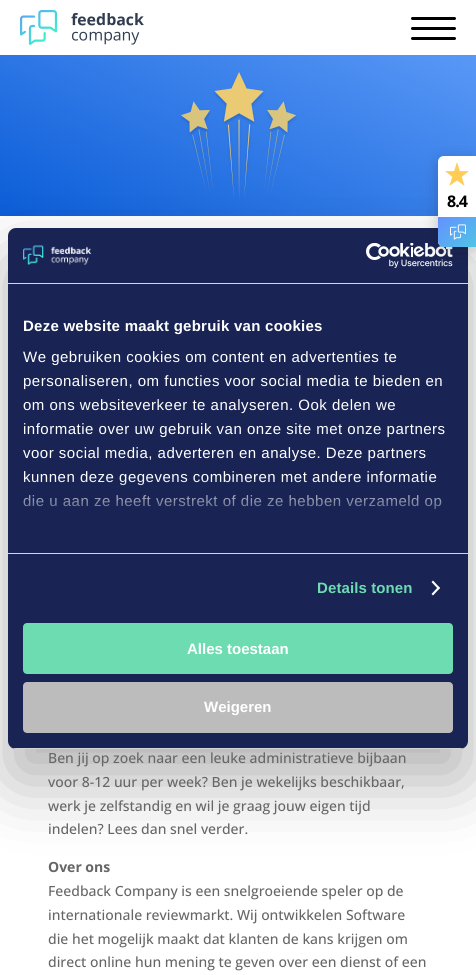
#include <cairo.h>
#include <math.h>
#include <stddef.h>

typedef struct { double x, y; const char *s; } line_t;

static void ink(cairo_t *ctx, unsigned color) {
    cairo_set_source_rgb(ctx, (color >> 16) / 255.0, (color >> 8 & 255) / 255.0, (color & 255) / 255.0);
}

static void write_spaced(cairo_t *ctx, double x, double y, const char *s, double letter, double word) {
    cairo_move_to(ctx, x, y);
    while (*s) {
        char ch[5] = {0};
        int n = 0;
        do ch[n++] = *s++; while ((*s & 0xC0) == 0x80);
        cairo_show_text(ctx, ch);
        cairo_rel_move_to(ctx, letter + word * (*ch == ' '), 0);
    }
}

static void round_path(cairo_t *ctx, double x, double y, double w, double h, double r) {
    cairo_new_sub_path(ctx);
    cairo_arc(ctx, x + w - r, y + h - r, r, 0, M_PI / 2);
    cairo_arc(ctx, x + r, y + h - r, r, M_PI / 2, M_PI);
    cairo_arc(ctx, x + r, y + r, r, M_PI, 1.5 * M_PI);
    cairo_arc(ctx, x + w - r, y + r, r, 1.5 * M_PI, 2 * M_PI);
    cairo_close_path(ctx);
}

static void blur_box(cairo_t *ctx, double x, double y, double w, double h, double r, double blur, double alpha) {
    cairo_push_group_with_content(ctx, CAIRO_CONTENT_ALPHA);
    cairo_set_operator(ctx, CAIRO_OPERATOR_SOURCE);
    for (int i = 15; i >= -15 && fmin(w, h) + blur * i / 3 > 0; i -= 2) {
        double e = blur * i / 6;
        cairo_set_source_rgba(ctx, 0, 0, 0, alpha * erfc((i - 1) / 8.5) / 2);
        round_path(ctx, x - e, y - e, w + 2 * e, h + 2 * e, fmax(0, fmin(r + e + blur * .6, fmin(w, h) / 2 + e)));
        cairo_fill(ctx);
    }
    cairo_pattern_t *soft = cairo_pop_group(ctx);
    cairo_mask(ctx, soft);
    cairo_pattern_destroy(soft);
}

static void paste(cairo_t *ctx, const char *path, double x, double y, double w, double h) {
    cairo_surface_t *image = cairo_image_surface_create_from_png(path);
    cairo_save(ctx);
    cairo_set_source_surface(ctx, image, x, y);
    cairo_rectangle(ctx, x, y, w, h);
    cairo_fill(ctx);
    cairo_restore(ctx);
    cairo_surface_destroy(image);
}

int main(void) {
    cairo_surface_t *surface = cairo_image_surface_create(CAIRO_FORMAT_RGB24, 476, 975);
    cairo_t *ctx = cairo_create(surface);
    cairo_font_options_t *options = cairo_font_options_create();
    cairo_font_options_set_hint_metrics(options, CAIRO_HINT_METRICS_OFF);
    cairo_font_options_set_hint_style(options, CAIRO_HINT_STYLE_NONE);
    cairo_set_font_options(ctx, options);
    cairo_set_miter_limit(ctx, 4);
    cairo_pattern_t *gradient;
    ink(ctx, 0xFFFFFF);
    cairo_paint(ctx);
    paste(ctx, "media/6.png", 0, 55, 476, 161);
    ink(ctx, 0x000000);
    blur_box(ctx, 8, 260, 460, 521, 8, 34, 0.3);
    ink(ctx, 0x192454);
    round_path(ctx, 8, 228, 460, 521, 8);
    cairo_fill(ctx);
    paste(ctx, "media/4.png", 366, 243, 87, 25);
    ink(ctx, 0x1E1E1E);
    blur_box(ctx, 438, 160, 38, 91, 6, 8, 0.12);
    blur_box(ctx, 438, 160, 38, 91, 6, 8, 0.12);
    ink(ctx, 0xFFFFFF);
    cairo_new_path(ctx);
    cairo_move_to(ctx, 444, 156);
    cairo_line_to(ctx, 476, 156);
    cairo_line_to(ctx, 476, 247);
    cairo_line_to(ctx, 444, 247);
    cairo_curve_to(ctx, 440.5, 247, 438, 244.5, 438, 241);
    cairo_line_to(ctx, 438, 162);
    cairo_curve_to(ctx, 438, 158.5, 440.5, 156, 444, 156);
    cairo_close_path(ctx);
    cairo_fill(ctx);
    paste(ctx, "media/1.png", 445, 162, 24, 24);
    cairo_select_font_face(ctx, "Open Sans", CAIRO_FONT_SLANT_NORMAL, CAIRO_FONT_WEIGHT_BOLD);
    cairo_set_font_size(ctx, 16);
    ink(ctx, 0x000000);
    write_spaced(ctx, 447, 207, "8.4", -1, 0);
    gradient = cairo_pattern_create_linear(441, 214, 473, 250);
    cairo_pattern_add_color_stop_rgba(gradient, 0, 0.396, 0.565, 1, 1);
    cairo_pattern_add_color_stop_rgba(gradient, 1, 0.306, 0.773, 0.894, 1);
    cairo_set_source(ctx, gradient);
    cairo_pattern_destroy(gradient);
    cairo_new_path(ctx);
    cairo_move_to(ctx, 438, 217);
    cairo_line_to(ctx, 476, 217);
    cairo_line_to(ctx, 476, 247);
    cairo_line_to(ctx, 444, 247);
    cairo_curve_to(ctx, 440.5, 247, 438, 244.5, 438, 241);
    cairo_close_path(ctx);
    cairo_fill(ctx);
    paste(ctx, "media/2.png", 450, 224, 16, 16);
    ink(ctx, 0xD6D6D6);
    cairo_rectangle(ctx, 8, 283, 460, 1);
    cairo_fill(ctx);
    paste(ctx, "media/3.png", 23, 245, 69, 20);
    cairo_rectangle(ctx, 8, 553, 460, 1);
    cairo_fill(ctx);
    cairo_select_font_face(ctx, "Liberation Sans", CAIRO_FONT_SLANT_NORMAL, CAIRO_FONT_WEIGHT_BOLD);
    cairo_set_font_size(ctx, 15);
    ink(ctx, 0xFFFFFF);
    write_spaced(ctx, 23, 331, "Deze website maakt gebruik van cookies", 0.25, 0);
    cairo_select_font_face(ctx, "Liberation Sans", CAIRO_FONT_SLANT_NORMAL, CAIRO_FONT_WEIGHT_NORMAL);
    {
        static const line_t items[] = {
            {23, 362, "We gebruiken cookies om content en advertenties te"},
            {23, 386, "personaliseren, om functies voor social media te bieden en"},
            {23, 410, "om ons websiteverkeer te analyseren. Ook delen we"},
            {23, 434, "informatie over uw gebruik van onze site met onze partners"},
            {23, 458, "voor social media, adverteren en analyse. Deze partners"},
            {23, 482, "kunnen deze gegevens combineren met andere informatie"},
            {23, 506, "die u aan ze heeft verstrekt of die ze hebben verzameld op"},
        };
        for (size_t i = 0; i < sizeof items / sizeof *items; i++) {
            write_spaced(ctx, items[i].x, items[i].y, items[i].s, 0.5, 0);
        }
    }
    gradient = cairo_pattern_create_linear(232, 553, 232, 478);
    cairo_pattern_add_color_stop_rgba(gradient, 0, 0.098, 0.141, 0.329, 1);
    cairo_pattern_add_color_stop_rgba(gradient, 0.5, 0.098, 0.141, 0.329, 0.8);
    cairo_pattern_add_color_stop_rgba(gradient, 1, 0.098, 0.141, 0.329, 0);
    cairo_set_source(ctx, gradient);
    cairo_pattern_destroy(gradient);
    cairo_rectangle(ctx, 23, 479, 419, 31);
    cairo_fill(ctx);
    cairo_select_font_face(ctx, "Liberation Sans", CAIRO_FONT_SLANT_NORMAL, CAIRO_FONT_WEIGHT_BOLD);
    ink(ctx, 0x6DDCB1);
    write_spaced(ctx, 317, 593, "Details tonen", 0.1, 0);
    ink(ctx, 0xFFFFFF);
    cairo_new_path(ctx);
    cairo_move_to(ctx, 433, 580.5);
    cairo_line_to(ctx, 440, 588);
    cairo_line_to(ctx, 438.5, 589.5);
    cairo_line_to(ctx, 431.5, 582);
    cairo_close_path(ctx);
    cairo_fill(ctx);
    cairo_new_path(ctx);
    cairo_move_to(ctx, 438.5, 586.5);
    cairo_line_to(ctx, 440, 588);
    cairo_line_to(ctx, 433, 595.5);
    cairo_line_to(ctx, 431.5, 594);
    cairo_close_path(ctx);
    cairo_fill(ctx);
    cairo_save(ctx);
    round_path(ctx, 8, 228, 460, 521, 8);
    cairo_clip(ctx);
    ink(ctx, 0xD6D6D6);
    cairo_rectangle(ctx, 8, 748, 460, 1);
    cairo_fill(ctx);
    cairo_restore(ctx);
    ink(ctx, 0x6DDCB1);
    round_path(ctx, 24, 624, 428, 49, 3);
    cairo_fill_preserve(ctx);
    cairo_stroke(ctx);
    ink(ctx, 0xFFFFFF);
    cairo_move_to(ctx, 187, 654);
    cairo_show_text(ctx, "Alles toestaan");
    ink(ctx, 0xBCBCBC);
    round_path(ctx, 24, 683, 428, 49, 3);
    cairo_fill_preserve(ctx);
    cairo_stroke(ctx);
    ink(ctx, 0xFFFFFF);
    cairo_move_to(ctx, 204, 712);
    cairo_show_text(ctx, "Weigeren");
    paste(ctx, "media/5.png", 20, 10, 124, 35);
    ink(ctx, 0x000000);
    round_path(ctx, 411, 17, 45, 3, 1.5);
    cairo_fill(ctx);
    round_path(ctx, 411, 27, 45, 3, 1.5);
    cairo_fill(ctx);
    round_path(ctx, 411, 37, 45, 3, 1.5);
    cairo_fill(ctx);
    cairo_select_font_face(ctx, "Open Sans Medium", CAIRO_FONT_SLANT_NORMAL, CAIRO_FONT_WEIGHT_NORMAL);
    cairo_set_font_size(ctx, 14);
    ink(ctx, 0x666666);
    {
        static const line_t items[] = {
            {48, 763, "Ben jij op zoek naar een leuke administratieve bijbaan"},
            {48, 787, "voor 8-12 uur per week? Ben je wekelijks beschikbaar,"},
            {48, 811, "werk je zelfstandig en wil je graag jouw eigen tijd"},
            {48, 834, "indelen? Lees dan snel verder."},
        };
        for (size_t i = 0; i < sizeof items / sizeof *items; i++) {
            cairo_move_to(ctx, items[i].x, items[i].y);
            cairo_show_text(ctx, items[i].s);
        }
    }
    cairo_select_font_face(ctx, "Open Sans", CAIRO_FONT_SLANT_NORMAL, CAIRO_FONT_WEIGHT_BOLD);
    cairo_move_to(ctx, 48, 872);
    cairo_show_text(ctx, "Over ons");
    cairo_select_font_face(ctx, "Open Sans Medium", CAIRO_FONT_SLANT_NORMAL, CAIRO_FONT_WEIGHT_NORMAL);
    {
        static const line_t items[] = {
            {48, 896, "Feedback Company is een snelgroeiende speler op de"},
            {48, 920, "internationale reviewmarkt. Wij ontwikkelen Software"},
            {48, 944, "die het mogelijk maakt dat klanten de kans krijgen om"},
            {48, 967, "direct online hun mening te geven over een dienst of een"},
        };
        for (size_t i = 0; i < sizeof items / sizeof *items; i++) {
            cairo_move_to(ctx, items[i].x, items[i].y);
            cairo_show_text(ctx, items[i].s);
        }
    }
    cairo_surface_write_to_png(surface, "image.png");
    cairo_font_options_destroy(options);
    cairo_destroy(ctx);
    cairo_surface_destroy(surface);
    return 0;
}
